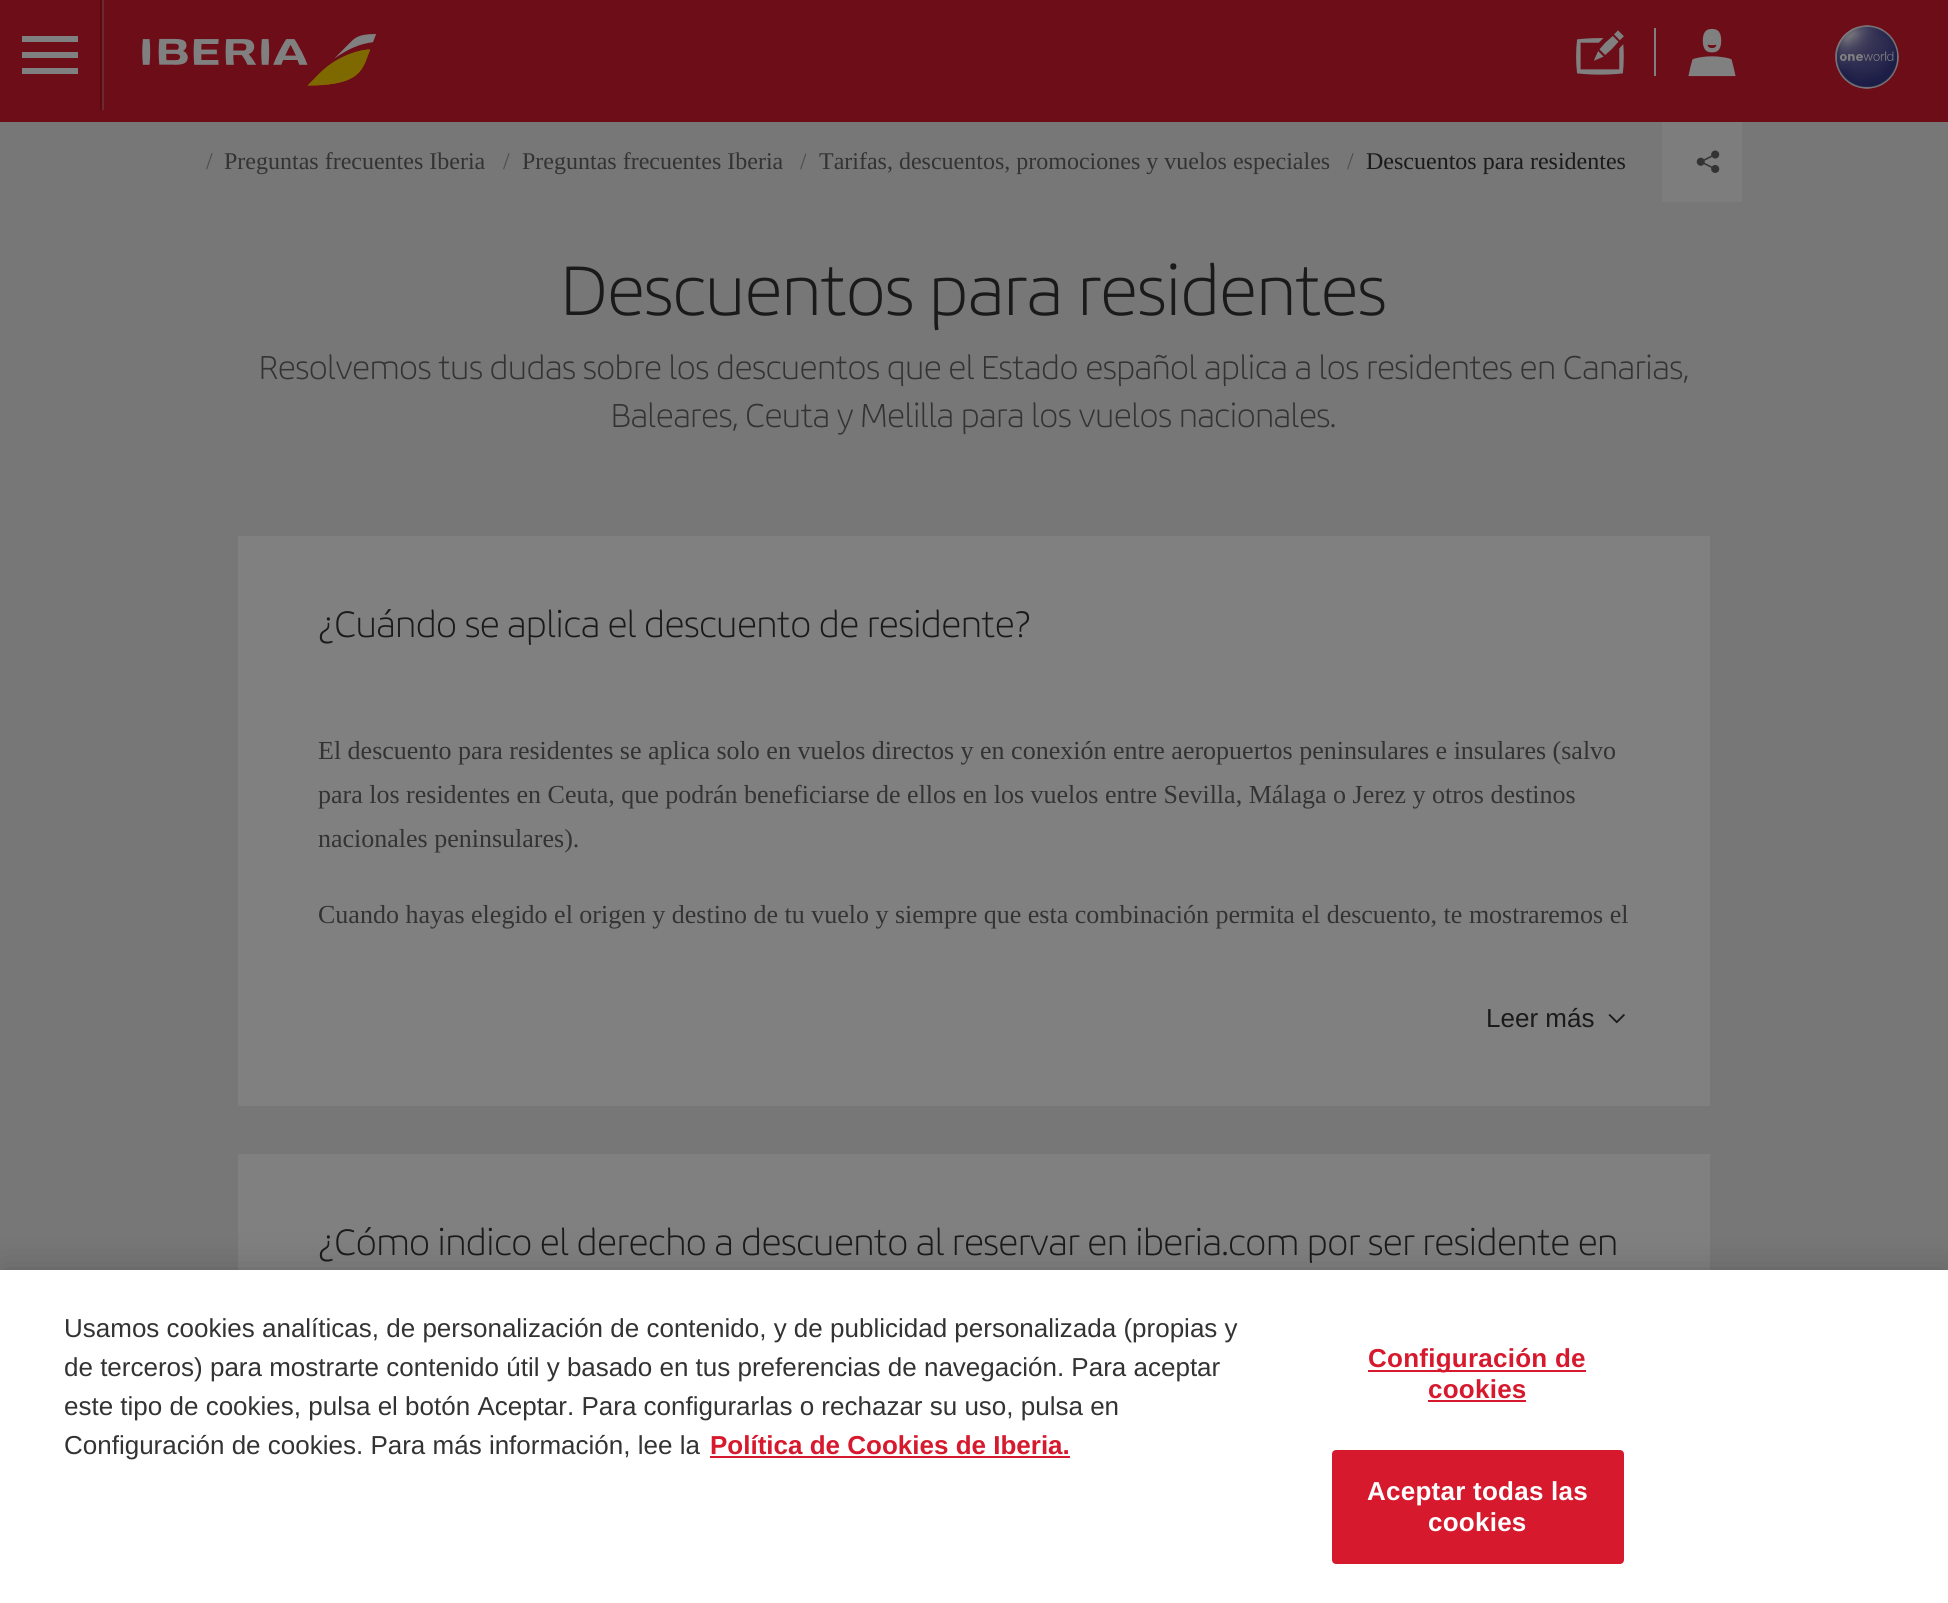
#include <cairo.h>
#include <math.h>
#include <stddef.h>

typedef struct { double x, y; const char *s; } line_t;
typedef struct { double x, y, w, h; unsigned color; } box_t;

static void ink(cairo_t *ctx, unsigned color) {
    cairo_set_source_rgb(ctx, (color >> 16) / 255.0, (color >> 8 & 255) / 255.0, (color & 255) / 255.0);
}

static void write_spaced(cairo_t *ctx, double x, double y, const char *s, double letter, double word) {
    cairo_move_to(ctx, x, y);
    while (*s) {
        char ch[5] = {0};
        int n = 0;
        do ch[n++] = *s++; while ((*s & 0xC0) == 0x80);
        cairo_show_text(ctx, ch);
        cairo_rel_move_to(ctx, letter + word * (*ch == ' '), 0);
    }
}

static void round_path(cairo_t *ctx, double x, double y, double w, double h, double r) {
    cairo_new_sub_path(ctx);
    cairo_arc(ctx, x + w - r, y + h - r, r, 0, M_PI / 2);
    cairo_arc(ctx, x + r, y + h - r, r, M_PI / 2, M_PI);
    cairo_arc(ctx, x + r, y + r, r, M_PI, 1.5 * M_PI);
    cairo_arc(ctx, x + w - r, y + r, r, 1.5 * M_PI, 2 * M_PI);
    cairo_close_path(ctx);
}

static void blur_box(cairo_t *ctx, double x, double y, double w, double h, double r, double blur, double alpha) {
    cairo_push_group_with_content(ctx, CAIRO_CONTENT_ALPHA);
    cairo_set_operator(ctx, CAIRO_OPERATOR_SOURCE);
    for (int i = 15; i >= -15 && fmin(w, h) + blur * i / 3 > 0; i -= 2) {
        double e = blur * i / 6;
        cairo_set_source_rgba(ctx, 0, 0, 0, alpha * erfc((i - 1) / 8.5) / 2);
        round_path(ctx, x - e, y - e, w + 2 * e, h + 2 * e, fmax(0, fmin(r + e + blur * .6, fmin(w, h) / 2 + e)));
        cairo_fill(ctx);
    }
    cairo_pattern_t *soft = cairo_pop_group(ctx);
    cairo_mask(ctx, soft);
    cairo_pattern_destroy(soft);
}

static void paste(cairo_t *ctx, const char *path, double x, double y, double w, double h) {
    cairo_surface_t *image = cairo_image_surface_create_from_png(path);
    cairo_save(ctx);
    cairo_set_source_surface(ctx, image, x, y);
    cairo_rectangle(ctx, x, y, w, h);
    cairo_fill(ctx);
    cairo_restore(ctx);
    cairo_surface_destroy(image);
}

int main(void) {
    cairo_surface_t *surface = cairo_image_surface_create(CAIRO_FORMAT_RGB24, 1948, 1603);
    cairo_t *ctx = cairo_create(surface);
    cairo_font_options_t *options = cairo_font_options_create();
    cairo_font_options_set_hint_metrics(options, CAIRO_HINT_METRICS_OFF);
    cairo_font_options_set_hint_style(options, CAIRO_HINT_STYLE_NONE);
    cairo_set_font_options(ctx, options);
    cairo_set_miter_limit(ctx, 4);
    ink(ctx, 0x777777);
    cairo_paint(ctx);
    {
        static const box_t items[] = {
            {0, 0, 1948, 122, 0x6C0D17},
            {100, 0, 2, 110, 0x5D0912},
            {22, 52, 56, 6, 0x808080},
            {22, 36, 56, 6, 0x808080},
            {22, 68, 56, 6, 0x808080},
            {102, 0, 2, 110, 0x6C2930},
        };
        for (size_t i = 0; i < sizeof items / sizeof *items; i++) {
            ink(ctx, items[i].color);
            cairo_rectangle(ctx, items[i].x, items[i].y, items[i].w, items[i].h);
            cairo_fill(ctx);
        }
    }
    paste(ctx, "media/1.png", 142, 34, 234, 52);
    paste(ctx, "media/2.png", 1576, 30, 48, 45);
    ink(ctx, 0x808080);
    cairo_rectangle(ctx, 1654, 28, 2, 48);
    cairo_fill(ctx);
    paste(ctx, "media/3.png", 1688, 29, 48, 48);
    paste(ctx, "media/4.png", 1835, 25, 64, 64);
    cairo_select_font_face(ctx, "Liberation Serif", CAIRO_FONT_SLANT_NORMAL, CAIRO_FONT_WEIGHT_NORMAL);
    cairo_set_font_size(ctx, 24);
    ink(ctx, 0x4D4D4D);
    cairo_move_to(ctx, 206, 169);
    cairo_show_text(ctx, "/");
    ink(ctx, 0x333333);
    cairo_move_to(ctx, 224, 169);
    cairo_show_text(ctx, "Preguntas frecuentes Iberia");
    ink(ctx, 0x4D4D4D);
    cairo_move_to(ctx, 503, 169);
    cairo_show_text(ctx, "/");
    ink(ctx, 0x333333);
    cairo_move_to(ctx, 522, 169);
    cairo_show_text(ctx, "Preguntas frecuentes Iberia");
    cairo_save(ctx);
    cairo_rectangle(ctx, 510, 122, 296, 80);
    cairo_clip(ctx);
    ink(ctx, 0x4D4D4D);
    cairo_move_to(ctx, 800, 169);
    cairo_show_text(ctx, "/");
    cairo_restore(ctx);
    cairo_move_to(ctx, 819, 169);
    cairo_show_text(ctx, "Tarifas, descuentos, promociones y vuelos especiales");
    ink(ctx, 0x4D4D4D);
    cairo_move_to(ctx, 1347, 169);
    cairo_show_text(ctx, "/");
    ink(ctx, 0x1A1A1A);
    cairo_move_to(ctx, 1366, 169);
    cairo_show_text(ctx, "Descuentos para residentes");
    ink(ctx, 0x7D7D7D);
    cairo_rectangle(ctx, 1662, 122, 80, 80);
    cairo_fill(ctx);
    paste(ctx, "media/5.png", 1696, 150, 24, 23);
    cairo_select_font_face(ctx, "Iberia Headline", CAIRO_FONT_SLANT_NORMAL, CAIRO_FONT_WEIGHT_NORMAL);
    cairo_set_font_size(ctx, 76);
    ink(ctx, 0x1A1A1A);
    cairo_move_to(ctx, 561, 315);
    cairo_show_text(ctx, "Descuentos para residentes");
    cairo_set_font_size(ctx, 36);
    ink(ctx, 0x333333);
    cairo_move_to(ctx, 259, 379);
    cairo_show_text(ctx, "Resolvemos tus dudas sobre los descuentos que el Estado español aplica a los residentes en Canarias,");
    cairo_move_to(ctx, 611, 427);
    cairo_show_text(ctx, "Baleares, Ceuta y Melilla para los vuelos nacionales.");
    ink(ctx, 0x808080);
    cairo_rectangle(ctx, 238, 536, 1472, 570);
    cairo_fill(ctx);
    cairo_set_font_size(ctx, 40);
    ink(ctx, 0x1A1A1A);
    cairo_move_to(ctx, 318, 637);
    cairo_show_text(ctx, "¿Cuándo se aplica el descuento de residente?");
    cairo_select_font_face(ctx, "Liberation Serif", CAIRO_FONT_SLANT_NORMAL, CAIRO_FONT_WEIGHT_NORMAL);
    cairo_set_font_size(ctx, 26);
    ink(ctx, 0x333333);
    {
        static const line_t items[] = {
            {318, 759, "El descuento para residentes se aplica solo en vuelos directos y en conexión entre aeropuertos peninsulares e insulares (salvo"},
            {318, 803, "para los residentes en Ceuta, que podrán beneficiarse de ellos en los vuelos entre Sevilla, Málaga o Jerez y otros destinos"},
            {318, 847, "nacionales peninsulares)."},
            {318, 923, "Cuando hayas elegido el origen y destino de tu vuelo y siempre que esta combinación permita el descuento, te mostraremos el"},
        };
        for (size_t i = 0; i < sizeof items / sizeof *items; i++) {
            cairo_move_to(ctx, items[i].x, items[i].y);
            cairo_show_text(ctx, items[i].s);
        }
    }
    cairo_select_font_face(ctx, "Liberation Sans", CAIRO_FONT_SLANT_NORMAL, CAIRO_FONT_WEIGHT_NORMAL);
    ink(ctx, 0x1A1A1A);
    cairo_move_to(ctx, 1486, 1027);
    cairo_show_text(ctx, "Leer más");
    paste(ctx, "media/6.png", 1608, 1014, 17, 10);
    ink(ctx, 0x808080);
    cairo_rectangle(ctx, 238, 1154, 1472, 116);
    cairo_fill(ctx);
    cairo_select_font_face(ctx, "Iberia Headline", CAIRO_FONT_SLANT_NORMAL, CAIRO_FONT_WEIGHT_NORMAL);
    cairo_set_font_size(ctx, 40);
    ink(ctx, 0x1A1A1A);
    cairo_move_to(ctx, 318, 1255);
    cairo_show_text(ctx, "¿Cómo indico el derecho a descuento al reservar en iberia.com por ser residente en");
    ink(ctx, 0x000000);
    blur_box(ctx, 0, 1270, 1948, 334, 0, 18, 0.2);
    ink(ctx, 0xFFFFFF);
    cairo_rectangle(ctx, 0, 1270, 1948, 333);
    cairo_fill(ctx);
    cairo_select_font_face(ctx, "Liberation Sans", CAIRO_FONT_SLANT_NORMAL, CAIRO_FONT_WEIGHT_NORMAL);
    cairo_set_font_size(ctx, 26);
    ink(ctx, 0x333333);
    {
        static const line_t items[] = {
            {64, 1337, "Usamos cookies analíticas, de personalización de contenido, y de publicidad personalizada (propias y"},
            {64, 1376, "de terceros) para mostrarte contenido útil y basado en tus preferencias de navegación. Para aceptar"},
            {64, 1415, "este tipo de cookies, pulsa el botón Aceptar. Para configurarlas o rechazar su uso, pulsa en"},
            {64, 1454, "Configuración de cookies. Para más información, lee la"},
        };
        for (size_t i = 0; i < sizeof items / sizeof *items; i++) {
            cairo_move_to(ctx, items[i].x, items[i].y);
            cairo_show_text(ctx, items[i].s);
        }
    }
    cairo_select_font_face(ctx, "Liberation Sans", CAIRO_FONT_SLANT_NORMAL, CAIRO_FONT_WEIGHT_BOLD);
    ink(ctx, 0xD7192D);
    cairo_move_to(ctx, 710, 1454);
    cairo_show_text(ctx, "Política de Cookies de Iberia.");
    cairo_rectangle(ctx, 710, 1456, 360, 2);
    cairo_fill(ctx);
    cairo_rectangle(ctx, 1368, 1370, 218, 2);
    cairo_fill(ctx);
    write_spaced(ctx, 1368, 1367, "Configuración de", 0.25, 0);
    write_spaced(ctx, 1428, 1398, "cookies", 0.25, 0);
    cairo_rectangle(ctx, 1428, 1400, 98, 2);
    cairo_fill(ctx);
    round_path(ctx, 1333, 1451, 290, 112, 3);
    cairo_fill_preserve(ctx);
    cairo_stroke(ctx);
    ink(ctx, 0xFFFFFF);
    write_spaced(ctx, 1367, 1500, "Aceptar todas las", 0.25, 0);
    write_spaced(ctx, 1428, 1531, "cookies", 0.25, 0);
    cairo_surface_write_to_png(surface, "image.png");
    cairo_font_options_destroy(options);
    cairo_destroy(ctx);
    cairo_surface_destroy(surface);
    return 0;
}
